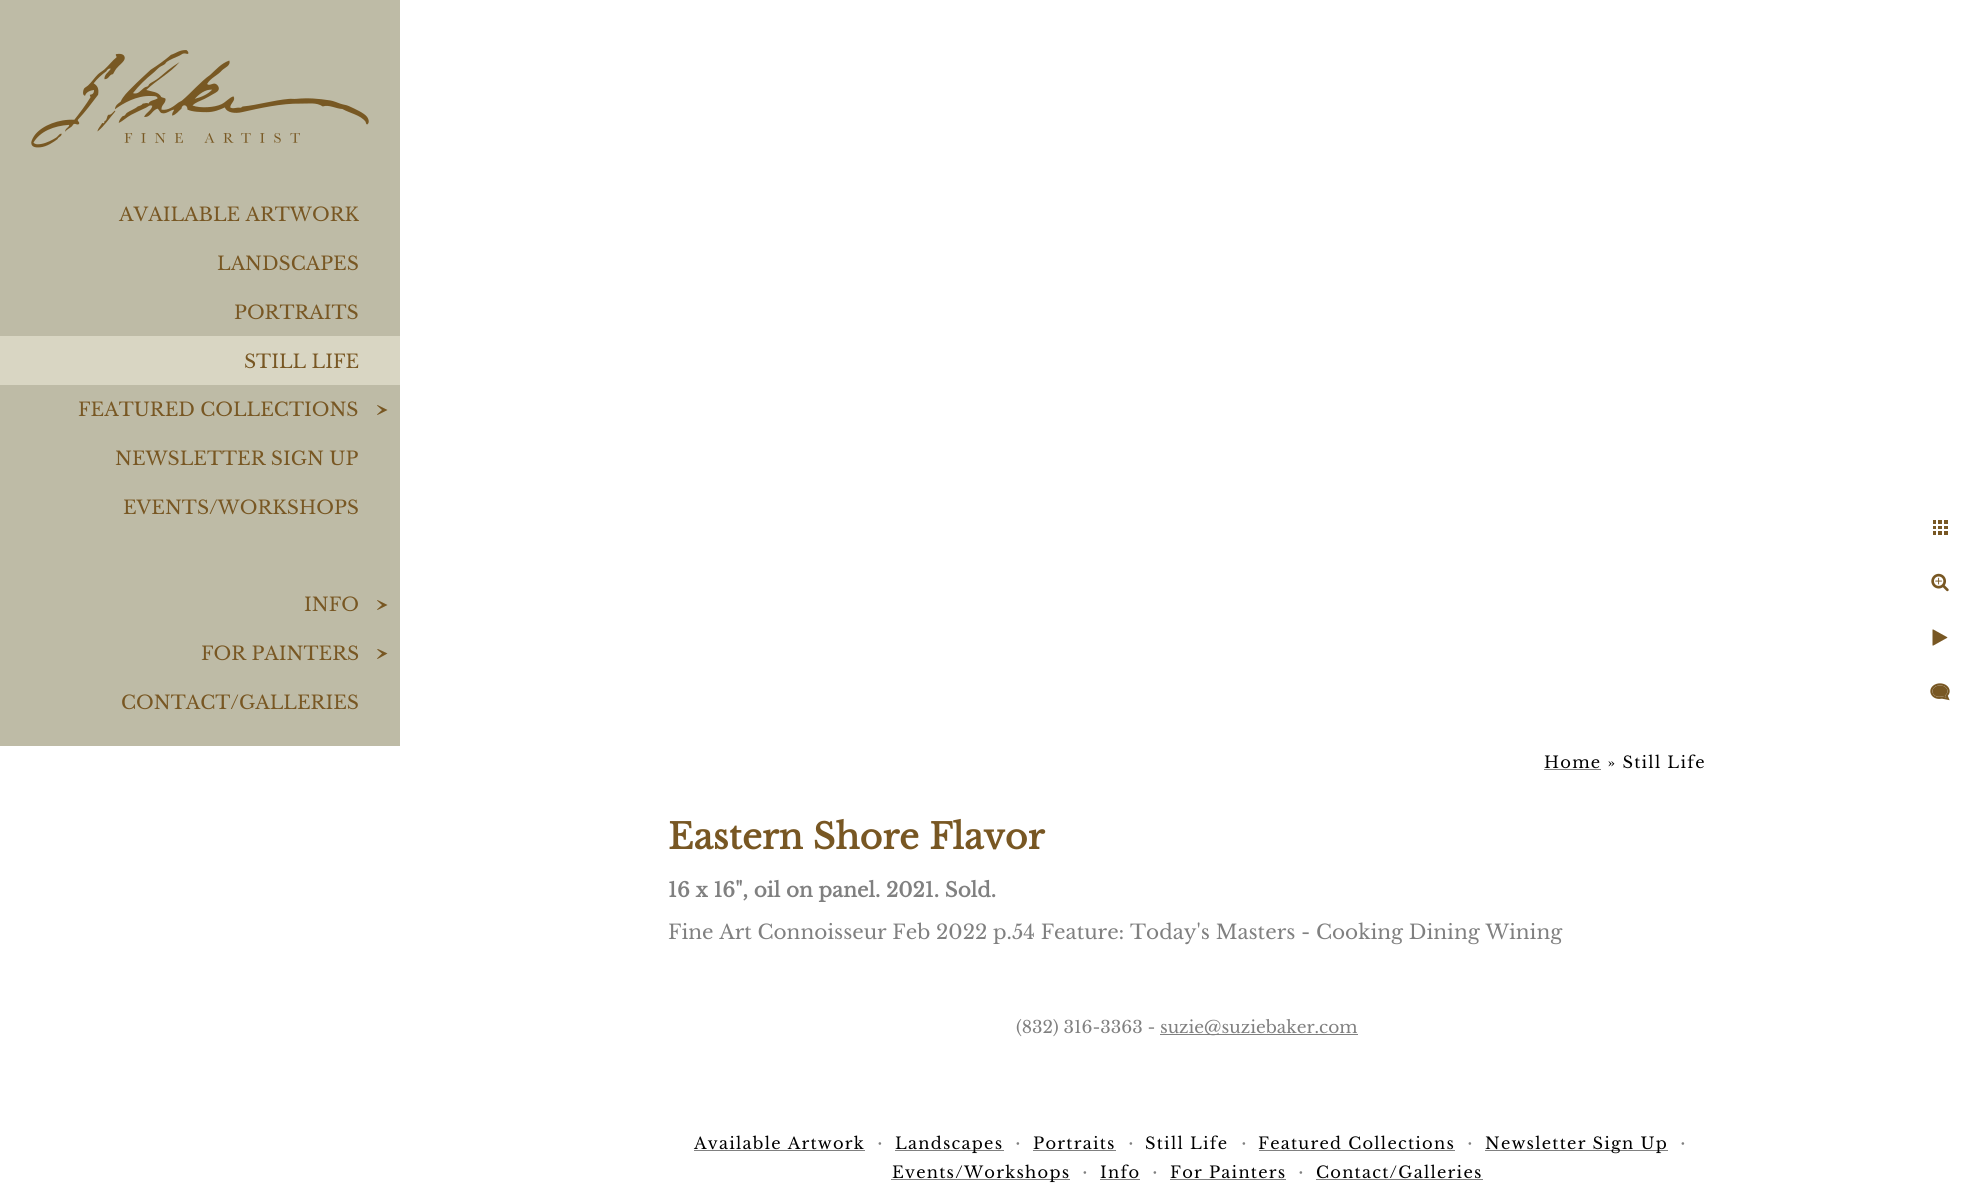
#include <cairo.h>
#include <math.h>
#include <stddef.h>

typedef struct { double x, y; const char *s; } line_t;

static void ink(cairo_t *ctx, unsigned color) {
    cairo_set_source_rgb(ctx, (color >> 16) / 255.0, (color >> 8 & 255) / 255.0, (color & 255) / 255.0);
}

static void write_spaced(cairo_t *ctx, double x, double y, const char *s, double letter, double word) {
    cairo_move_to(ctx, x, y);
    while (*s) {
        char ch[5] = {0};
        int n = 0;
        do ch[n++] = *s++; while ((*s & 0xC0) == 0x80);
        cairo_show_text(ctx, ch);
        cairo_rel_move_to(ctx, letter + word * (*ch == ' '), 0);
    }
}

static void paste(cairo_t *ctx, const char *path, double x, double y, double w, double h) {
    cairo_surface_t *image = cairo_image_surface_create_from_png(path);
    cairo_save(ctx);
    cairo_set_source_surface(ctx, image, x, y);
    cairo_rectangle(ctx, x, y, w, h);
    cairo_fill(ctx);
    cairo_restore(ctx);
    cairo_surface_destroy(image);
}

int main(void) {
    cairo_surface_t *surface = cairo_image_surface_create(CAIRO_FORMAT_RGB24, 1973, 1193);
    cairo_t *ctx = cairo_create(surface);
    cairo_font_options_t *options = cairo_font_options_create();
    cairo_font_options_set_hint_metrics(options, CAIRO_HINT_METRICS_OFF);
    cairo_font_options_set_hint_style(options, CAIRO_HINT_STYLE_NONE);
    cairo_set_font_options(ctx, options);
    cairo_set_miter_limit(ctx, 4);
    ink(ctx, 0xFFFFFF);
    cairo_paint(ctx);
    ink(ctx, 0xBEBBA6);
    cairo_rectangle(ctx, 0, 0, 400, 746);
    cairo_fill(ctx);
    paste(ctx, "media/1.png", 31, 50, 338, 98);
    cairo_select_font_face(ctx, "Libre Baskerville", CAIRO_FONT_SLANT_NORMAL, CAIRO_FONT_WEIGHT_NORMAL);
    cairo_set_font_size(ctx, 18.75);
    ink(ctx, 0x785723);
    {
        static const line_t items[] = {
            {119, 221, "AVAILABLE ARTWORK"},
            {217, 270, "LANDSCAPES"},
            {234, 319, "PORTRAITS"},
        };
        for (size_t i = 0; i < sizeof items / sizeof *items; i++) {
            cairo_move_to(ctx, items[i].x, items[i].y);
            cairo_show_text(ctx, items[i].s);
        }
    }
    ink(ctx, 0xD9D6C3);
    cairo_rectangle(ctx, 0, 336, 400, 49);
    cairo_fill(ctx);
    ink(ctx, 0x785723);
    cairo_move_to(ctx, 244, 368);
    cairo_show_text(ctx, "STILL LIFE");
    cairo_move_to(ctx, 78, 416);
    cairo_show_text(ctx, "FEATURED COLLECTIONS");
    cairo_new_path(ctx);
    cairo_move_to(ctx, 377, 414.5);
    cairo_line_to(ctx, 382, 410);
    cairo_line_to(ctx, 377, 405.5);
    cairo_line_to(ctx, 377.5, 405);
    cairo_line_to(ctx, 387.5, 410);
    cairo_line_to(ctx, 377.5, 415);
    cairo_close_path(ctx);
    cairo_fill(ctx);
    {
        static const line_t items[] = {
            {115, 465, "NEWSLETTER SIGN UP"},
            {123, 514, "EVENTS/WORKSHOPS"},
            {304, 611, "INFO"},
        };
        for (size_t i = 0; i < sizeof items / sizeof *items; i++) {
            cairo_move_to(ctx, items[i].x, items[i].y);
            cairo_show_text(ctx, items[i].s);
        }
    }
    cairo_new_path(ctx);
    cairo_move_to(ctx, 377, 609.5);
    cairo_line_to(ctx, 382, 605);
    cairo_line_to(ctx, 377, 600.5);
    cairo_line_to(ctx, 377.5, 600);
    cairo_line_to(ctx, 387.5, 605);
    cairo_line_to(ctx, 377.5, 610);
    cairo_close_path(ctx);
    cairo_fill(ctx);
    cairo_move_to(ctx, 201, 660);
    cairo_show_text(ctx, "FOR PAINTERS");
    cairo_new_path(ctx);
    cairo_move_to(ctx, 377, 658.5);
    cairo_line_to(ctx, 382, 653.5);
    cairo_line_to(ctx, 377, 649.5);
    cairo_line_to(ctx, 378, 649);
    cairo_line_to(ctx, 387.5, 653.5);
    cairo_line_to(ctx, 377.5, 659);
    cairo_close_path(ctx);
    cairo_fill(ctx);
    cairo_move_to(ctx, 121, 709);
    cairo_show_text(ctx, "CONTACT/GALLERIES");
    paste(ctx, "media/2.png", 1933, 520, 15, 15);
    paste(ctx, "media/3.png", 1931, 573, 18, 19);
    paste(ctx, "media/4.png", 1932, 629, 16, 17);
    paste(ctx, "media/5.png", 1930, 683, 20, 18);
    cairo_set_font_size(ctx, 16.25);
    ink(ctx, 0x000000);
    write_spaced(ctx, 1544, 768, "Home » Still Life", 1.25, 0);
    ink(ctx, 0x808080);
    cairo_rectangle(ctx, 1544, 769, 57, 1);
    cairo_fill(ctx);
    cairo_select_font_face(ctx, "Libre Baskerville", CAIRO_FONT_SLANT_NORMAL, CAIRO_FONT_WEIGHT_BOLD);
    cairo_set_font_size(ctx, 35);
    ink(ctx, 0x785723);
    cairo_move_to(ctx, 668, 849);
    cairo_show_text(ctx, "Eastern Shore Flavor");
    cairo_set_font_size(ctx, 20);
    ink(ctx, 0x808080);
    cairo_move_to(ctx, 668, 897);
    cairo_show_text(ctx, "16 x 16\", oil on panel. 2021. Sold.");
    cairo_select_font_face(ctx, "Libre Baskerville", CAIRO_FONT_SLANT_NORMAL, CAIRO_FONT_WEIGHT_NORMAL);
    cairo_move_to(ctx, 668, 939);
    cairo_show_text(ctx, "Fine Art Connoisseur Feb 2022 p.54 Feature: Today's Masters - Cooking Dining Wining");
    cairo_set_font_size(ctx, 17);
    cairo_move_to(ctx, 1016, 1033);
    cairo_show_text(ctx, "(832) 316-3363 -");
    cairo_rectangle(ctx, 1160, 1034, 198, 1);
    cairo_fill(ctx);
    cairo_move_to(ctx, 1160, 1033);
    cairo_show_text(ctx, "suzie@suziebaker.com");
    cairo_set_font_size(ctx, 16.25);
    ink(ctx, 0x000000);
    write_spaced(ctx, 694, 1149, "Available Artwork", 1.25, 0);
    ink(ctx, 0x808080);
    cairo_rectangle(ctx, 694, 1150, 171, 1);
    cairo_fill(ctx);
    cairo_set_font_size(ctx, 20);
    cairo_move_to(ctx, 877, 1149);
    cairo_show_text(ctx, "·");
    cairo_rectangle(ctx, 895, 1150, 109, 1);
    cairo_fill(ctx);
    cairo_set_font_size(ctx, 16.25);
    ink(ctx, 0x000000);
    write_spaced(ctx, 895, 1149, "Landscapes", 1.25, 0);
    cairo_set_font_size(ctx, 20);
    ink(ctx, 0x808080);
    cairo_move_to(ctx, 1015, 1149);
    cairo_show_text(ctx, "·");
    cairo_set_font_size(ctx, 16.25);
    ink(ctx, 0x000000);
    write_spaced(ctx, 1033, 1149, "Portraits", 1.25, 0);
    ink(ctx, 0x808080);
    cairo_rectangle(ctx, 1033, 1150, 83, 1);
    cairo_fill(ctx);
    cairo_set_font_size(ctx, 20);
    cairo_move_to(ctx, 1128, 1149);
    cairo_show_text(ctx, "·");
    cairo_set_font_size(ctx, 16.25);
    ink(ctx, 0x000000);
    write_spaced(ctx, 1145, 1149, "Still Life", 1.25, 0);
    cairo_set_font_size(ctx, 20);
    ink(ctx, 0x808080);
    cairo_move_to(ctx, 1241, 1149);
    cairo_show_text(ctx, "·");
    cairo_set_font_size(ctx, 16.25);
    ink(ctx, 0x000000);
    write_spaced(ctx, 1258, 1149, "Featured Collections", 1.25, 0);
    ink(ctx, 0x808080);
    cairo_rectangle(ctx, 1259, 1150, 196, 1);
    cairo_fill(ctx);
    cairo_set_font_size(ctx, 20);
    cairo_move_to(ctx, 1467, 1149);
    cairo_show_text(ctx, "·");
    cairo_rectangle(ctx, 1485, 1150, 183, 1);
    cairo_fill(ctx);
    cairo_set_font_size(ctx, 16.25);
    ink(ctx, 0x000000);
    write_spaced(ctx, 1485, 1149, "Newsletter Sign Up", 1.25, 0);
    cairo_set_font_size(ctx, 20);
    ink(ctx, 0x808080);
    cairo_move_to(ctx, 1680, 1149);
    cairo_show_text(ctx, "·");
    cairo_rectangle(ctx, 891, 1179, 179, 1);
    cairo_fill(ctx);
    cairo_set_font_size(ctx, 16.25);
    ink(ctx, 0x000000);
    write_spaced(ctx, 892, 1178, "Events/Workshops", 1.25, 0);
    cairo_set_font_size(ctx, 20);
    ink(ctx, 0x808080);
    cairo_move_to(ctx, 1082, 1178);
    cairo_show_text(ctx, "·");
    cairo_set_font_size(ctx, 16.25);
    ink(ctx, 0x000000);
    write_spaced(ctx, 1100, 1178, "Info", 1.25, 0);
    ink(ctx, 0x808080);
    cairo_rectangle(ctx, 1100, 1179, 40, 1);
    cairo_fill(ctx);
    cairo_set_font_size(ctx, 20);
    cairo_move_to(ctx, 1152, 1178);
    cairo_show_text(ctx, "·");
    cairo_set_font_size(ctx, 16.25);
    ink(ctx, 0x000000);
    write_spaced(ctx, 1170, 1178, "For Painters", 1.25, 0);
    ink(ctx, 0x808080);
    cairo_rectangle(ctx, 1170, 1179, 116, 1);
    cairo_fill(ctx);
    cairo_set_font_size(ctx, 20);
    cairo_move_to(ctx, 1298, 1178);
    cairo_show_text(ctx, "·");
    cairo_set_font_size(ctx, 16.25);
    ink(ctx, 0x000000);
    write_spaced(ctx, 1316, 1178, "Contact/Galleries", 1.25, 0);
    ink(ctx, 0x808080);
    cairo_rectangle(ctx, 1316, 1179, 167, 1);
    cairo_fill(ctx);
    cairo_surface_write_to_png(surface, "image.png");
    cairo_font_options_destroy(options);
    cairo_destroy(ctx);
    cairo_surface_destroy(surface);
    return 0;
}
